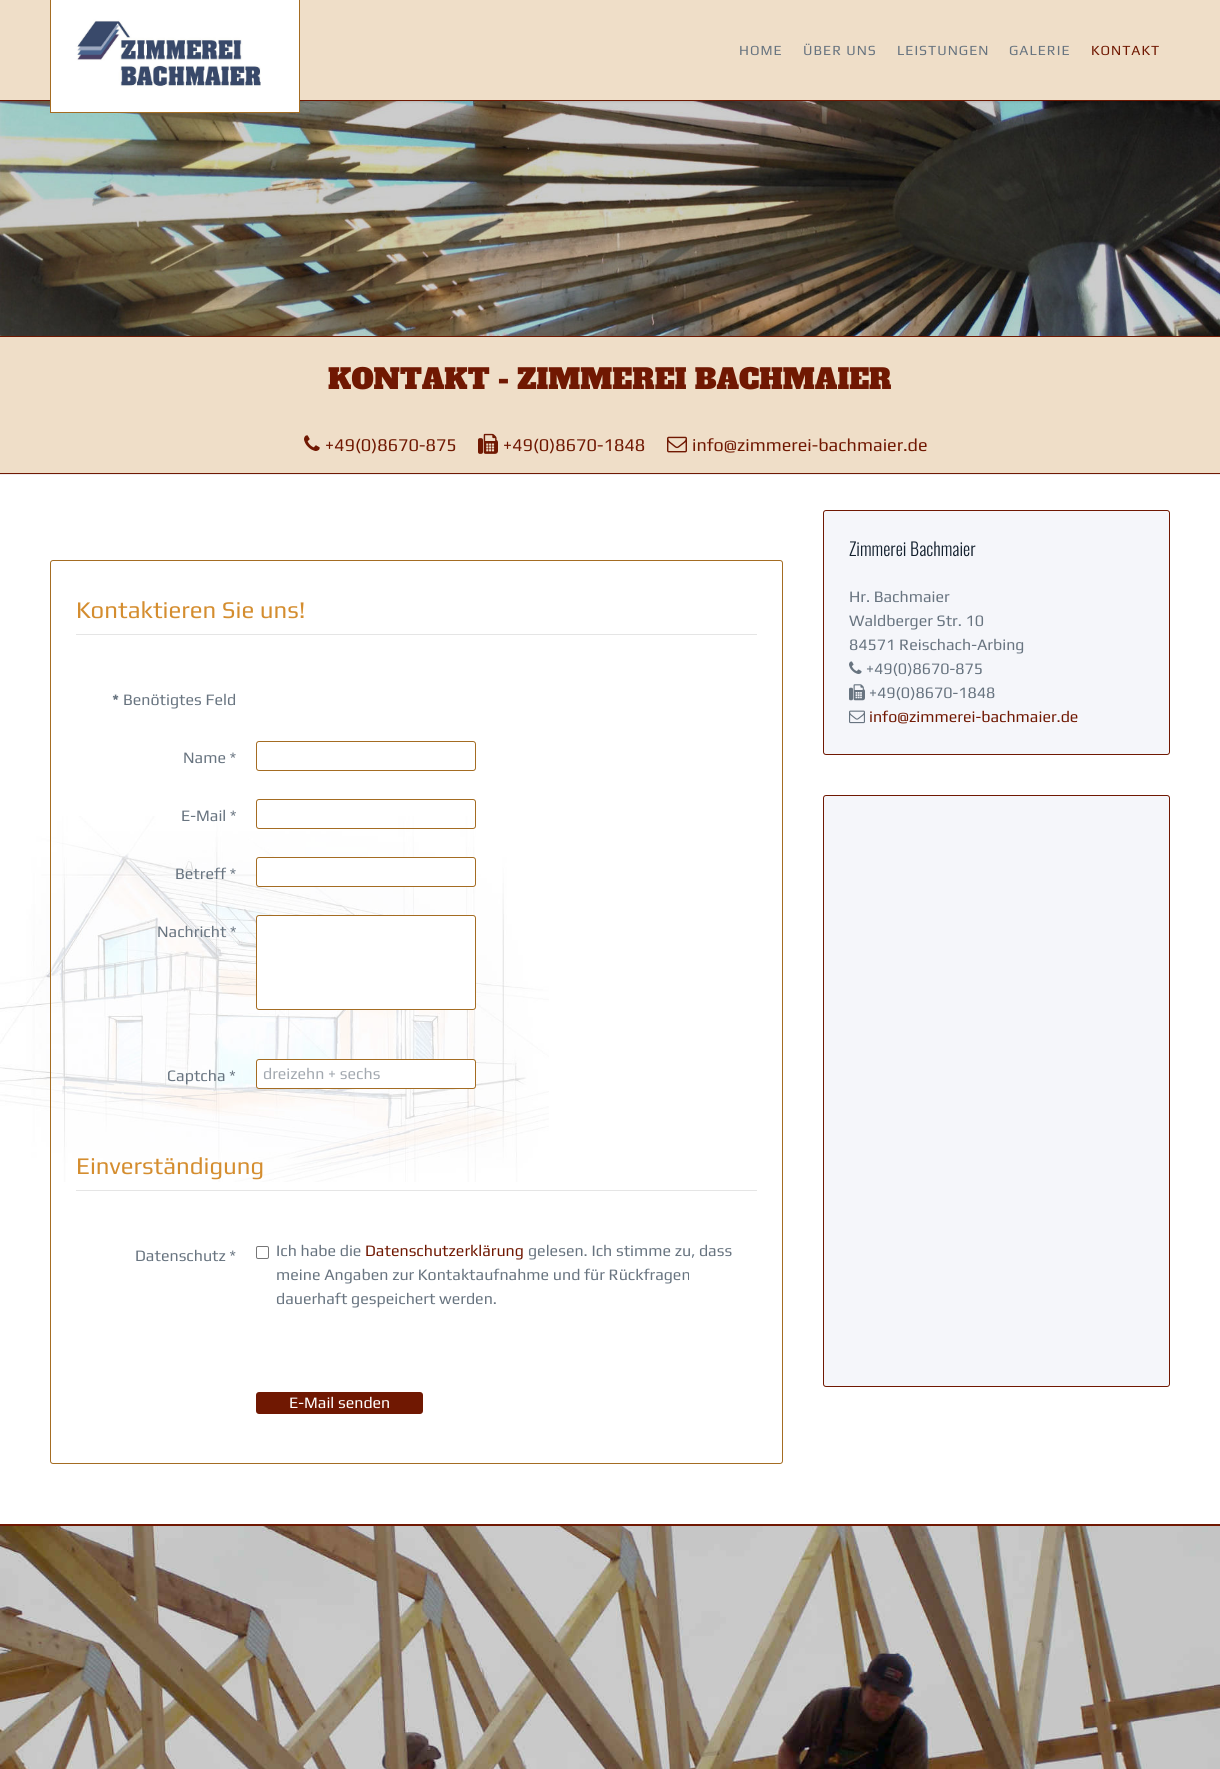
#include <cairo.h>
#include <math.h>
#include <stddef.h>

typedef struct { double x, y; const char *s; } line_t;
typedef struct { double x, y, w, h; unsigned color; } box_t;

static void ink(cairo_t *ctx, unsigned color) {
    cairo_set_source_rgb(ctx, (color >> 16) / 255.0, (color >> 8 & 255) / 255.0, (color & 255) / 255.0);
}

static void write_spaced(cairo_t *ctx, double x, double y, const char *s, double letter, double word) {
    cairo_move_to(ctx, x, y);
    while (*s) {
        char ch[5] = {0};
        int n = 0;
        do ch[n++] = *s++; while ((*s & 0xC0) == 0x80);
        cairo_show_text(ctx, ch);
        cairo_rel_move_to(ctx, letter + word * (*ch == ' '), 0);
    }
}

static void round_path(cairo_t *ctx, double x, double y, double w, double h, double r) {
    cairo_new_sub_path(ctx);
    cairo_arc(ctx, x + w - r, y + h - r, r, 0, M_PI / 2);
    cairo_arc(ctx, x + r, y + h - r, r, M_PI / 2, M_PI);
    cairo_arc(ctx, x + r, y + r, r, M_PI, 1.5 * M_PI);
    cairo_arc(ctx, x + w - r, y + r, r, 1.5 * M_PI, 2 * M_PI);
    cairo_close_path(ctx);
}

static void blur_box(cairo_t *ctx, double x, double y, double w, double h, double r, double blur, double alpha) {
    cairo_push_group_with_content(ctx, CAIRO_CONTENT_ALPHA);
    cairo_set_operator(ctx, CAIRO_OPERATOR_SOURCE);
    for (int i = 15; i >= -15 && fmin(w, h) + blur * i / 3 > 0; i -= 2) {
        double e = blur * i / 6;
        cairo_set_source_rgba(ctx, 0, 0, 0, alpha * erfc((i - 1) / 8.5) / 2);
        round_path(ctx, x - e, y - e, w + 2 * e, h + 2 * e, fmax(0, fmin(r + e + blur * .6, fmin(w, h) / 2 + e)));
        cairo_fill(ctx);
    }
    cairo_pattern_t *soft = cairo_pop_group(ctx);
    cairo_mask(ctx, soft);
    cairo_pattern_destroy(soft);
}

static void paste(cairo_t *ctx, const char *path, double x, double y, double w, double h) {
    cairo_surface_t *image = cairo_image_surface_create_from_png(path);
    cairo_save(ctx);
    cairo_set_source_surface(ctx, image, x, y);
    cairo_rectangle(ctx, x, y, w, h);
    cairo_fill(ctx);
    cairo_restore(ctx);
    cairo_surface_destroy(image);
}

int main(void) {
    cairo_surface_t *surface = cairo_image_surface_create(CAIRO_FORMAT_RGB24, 1220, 1769);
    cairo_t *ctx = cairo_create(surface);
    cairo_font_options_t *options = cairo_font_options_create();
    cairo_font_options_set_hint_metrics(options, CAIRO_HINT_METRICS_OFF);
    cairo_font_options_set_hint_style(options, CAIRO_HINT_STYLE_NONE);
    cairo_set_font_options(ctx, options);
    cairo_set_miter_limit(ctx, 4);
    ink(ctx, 0xFFFFFF);
    cairo_paint(ctx);
    paste(ctx, "media/2.png", 0, 101, 1220, 235);
    ink(ctx, 0x000000);
    blur_box(ctx, 0, 1, 1220, 101, 0, 1, 0.1);
    ink(ctx, 0xEFDEC8);
    cairo_rectangle(ctx, 0, 0, 1220, 100);
    cairo_fill(ctx);
    ink(ctx, 0x701802);
    cairo_rectangle(ctx, 0, 100, 1220, 1);
    cairo_fill(ctx);
    cairo_rectangle(ctx, 50.5, -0.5, 249, 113);
    ink(ctx, 0xA46C22);
    cairo_set_line_width(ctx, 1);
    cairo_stroke(ctx);
    paste(ctx, "media/1.png", 51, 0, 248, 112);
    cairo_select_font_face(ctx, "Play", CAIRO_FONT_SLANT_NORMAL, CAIRO_FONT_WEIGHT_NORMAL);
    cairo_set_font_size(ctx, 14);
    ink(ctx, 0x687480);
    {
        static const line_t items[] = {
            {739, 55, "HOME"},
            {803, 55, "ÜBER UNS"},
            {897, 55, "LEISTUNGEN"},
            {1009, 55, "GALERIE"},
        };
        for (size_t i = 0; i < sizeof items / sizeof *items; i++) {
            write_spaced(ctx, items[i].x, items[i].y, items[i].s, 1, 0);
        }
    }
    ink(ctx, 0x701802);
    write_spaced(ctx, 1091, 55, "KONTAKT", 1, 0);
    {
        static const box_t items[] = {
            {0, 337, 1220, 136, 0xEFDEC8},
            {0, 336, 1220, 1, 0x701802},
            {0, 473, 1220, 1, 0x701802},
        };
        for (size_t i = 0; i < sizeof items / sizeof *items; i++) {
            ink(ctx, items[i].color);
            cairo_rectangle(ctx, items[i].x, items[i].y, items[i].w, items[i].h);
            cairo_fill(ctx);
        }
    }
    cairo_select_font_face(ctx, "Alfa Slab One", CAIRO_FONT_SLANT_NORMAL, CAIRO_FONT_WEIGHT_NORMAL);
    cairo_set_font_size(ctx, 28);
    cairo_move_to(ctx, 328, 389);
    cairo_show_text(ctx, "KONTAKT - ZIMMEREI BACHMAIER");
    paste(ctx, "media/3.png", 304, 435, 16, 16);
    cairo_select_font_face(ctx, "Play", CAIRO_FONT_SLANT_NORMAL, CAIRO_FONT_WEIGHT_NORMAL);
    cairo_set_font_size(ctx, 18);
    cairo_move_to(ctx, 325, 451);
    cairo_show_text(ctx, "+49(0)8670-875");
    paste(ctx, "media/4.png", 478, 433, 20, 21);
    cairo_move_to(ctx, 503, 451);
    cairo_show_text(ctx, "+49(0)8670-1848");
    paste(ctx, "media/5.png", 667, 436, 20, 17);
    cairo_move_to(ctx, 692, 451);
    cairo_show_text(ctx, "info@zimmerei-bachmaier.de");
    paste(ctx, "media/6.png", 0, 816, 549, 366);
    ink(ctx, 0xEDEDF0);
    cairo_rectangle(ctx, 0, 474, 1220, 1);
    cairo_fill(ctx);
    cairo_set_source_rgba(ctx, 1, 1, 1, 0.4);
    round_path(ctx, 50.5, 560.5, 732, 903, 2.5);
    cairo_fill_preserve(ctx);
    ink(ctx, 0xA46C22);
    cairo_stroke(ctx);
    ink(ctx, 0xE5E5E5);
    cairo_rectangle(ctx, 76, 634, 681, 1);
    cairo_fill(ctx);
    cairo_set_font_size(ctx, 24);
    ink(ctx, 0xD48D2F);
    cairo_move_to(ctx, 76, 618);
    cairo_show_text(ctx, "Kontaktieren Sie uns!");
    cairo_select_font_face(ctx, "Play", CAIRO_FONT_SLANT_NORMAL, CAIRO_FONT_WEIGHT_BOLD);
    cairo_set_font_size(ctx, 16);
    ink(ctx, 0x687480);
    cairo_move_to(ctx, 112, 705);
    cairo_show_text(ctx, "*");
    cairo_select_font_face(ctx, "Play", CAIRO_FONT_SLANT_NORMAL, CAIRO_FONT_WEIGHT_NORMAL);
    cairo_move_to(ctx, 123, 705);
    cairo_show_text(ctx, "Benötigtes Feld");
    cairo_move_to(ctx, 183, 763);
    cairo_show_text(ctx, "Name *");
    round_path(ctx, 256.5, 741.5, 219, 29, 2.5);
    ink(ctx, 0xA46C22);
    cairo_stroke(ctx);
    ink(ctx, 0x687480);
    cairo_move_to(ctx, 181, 821);
    cairo_show_text(ctx, "E-Mail *");
    round_path(ctx, 256.5, 799.5, 219, 29, 2.5);
    ink(ctx, 0xA46C22);
    cairo_stroke(ctx);
    ink(ctx, 0x687480);
    cairo_move_to(ctx, 175, 879);
    cairo_show_text(ctx, "Betreff *");
    ink(ctx, 0xFFFFFF);
    round_path(ctx, 256.5, 857.5, 219, 29, 2.5);
    cairo_fill_preserve(ctx);
    ink(ctx, 0xA46C22);
    cairo_stroke(ctx);
    ink(ctx, 0x687480);
    cairo_move_to(ctx, 157, 937);
    cairo_show_text(ctx, "Nachricht *");
    ink(ctx, 0xFFFFFF);
    round_path(ctx, 256.5, 915.5, 219, 94, 2.5);
    cairo_fill_preserve(ctx);
    ink(ctx, 0xA46C22);
    cairo_stroke(ctx);
    ink(ctx, 0x687480);
    cairo_move_to(ctx, 167, 1081);
    cairo_show_text(ctx, "Captcha *");
    ink(ctx, 0xFFFFFF);
    round_path(ctx, 256.5, 1059.5, 219, 29, 2.5);
    cairo_fill_preserve(ctx);
    ink(ctx, 0xA46C22);
    cairo_stroke(ctx);
    ink(ctx, 0xA3A9B0);
    cairo_move_to(ctx, 263, 1079);
    cairo_show_text(ctx, "dreizehn + sechs");
    ink(ctx, 0xE5E5E5);
    cairo_rectangle(ctx, 76, 1190, 681, 1);
    cairo_fill(ctx);
    cairo_set_font_size(ctx, 24);
    ink(ctx, 0xD48D2F);
    cairo_move_to(ctx, 76, 1174);
    cairo_show_text(ctx, "Einverständigung");
    cairo_set_font_size(ctx, 16);
    ink(ctx, 0x687480);
    cairo_move_to(ctx, 135, 1261);
    cairo_show_text(ctx, "Datenschutz *");
    round_path(ctx, 256.5, 1246.5, 12, 12, 1.5);
    ink(ctx, 0x767676);
    cairo_stroke(ctx);
    ink(ctx, 0x687480);
    cairo_move_to(ctx, 276, 1256);
    cairo_show_text(ctx, "Ich habe die");
    ink(ctx, 0x701802);
    cairo_move_to(ctx, 365, 1256);
    cairo_show_text(ctx, "Datenschutzerklärung");
    ink(ctx, 0x687480);
    {
        static const line_t items[] = {
            {528, 1256, "gelesen. Ich stimme zu, dass"},
            {276, 1280, "meine Angaben zur Kontaktaufnahme und für Rückfragen"},
            {276, 1304, "dauerhaft gespeichert werden."},
        };
        for (size_t i = 0; i < sizeof items / sizeof *items; i++) {
            cairo_move_to(ctx, items[i].x, items[i].y);
            cairo_show_text(ctx, items[i].s);
        }
    }
    ink(ctx, 0x701802);
    round_path(ctx, 256, 1392, 167, 22, 3);
    cairo_fill(ctx);
    ink(ctx, 0xFFFFFF);
    cairo_move_to(ctx, 289, 1408);
    cairo_show_text(ctx, "E-Mail senden");
    ink(ctx, 0xF5F6FA);
    round_path(ctx, 823.5, 510.5, 346, 244, 2.5);
    cairo_fill_preserve(ctx);
    ink(ctx, 0x701802);
    cairo_stroke(ctx);
    cairo_select_font_face(ctx, "Oswald Light", CAIRO_FONT_SLANT_NORMAL, CAIRO_FONT_WEIGHT_NORMAL);
    cairo_set_font_size(ctx, 18);
    ink(ctx, 0x13202E);
    cairo_move_to(ctx, 849, 556);
    cairo_show_text(ctx, "Zimmerei Bachmaier");
    cairo_select_font_face(ctx, "Play", CAIRO_FONT_SLANT_NORMAL, CAIRO_FONT_WEIGHT_NORMAL);
    cairo_set_font_size(ctx, 16);
    ink(ctx, 0x687480);
    {
        static const line_t items[] = {
            {849, 602, "Hr. Bachmaier"},
            {849, 626, "Waldberger Str. 10"},
            {849, 650, "84571 Reischach-Arbing"},
        };
        for (size_t i = 0; i < sizeof items / sizeof *items; i++) {
            cairo_move_to(ctx, items[i].x, items[i].y);
            cairo_show_text(ctx, items[i].s);
        }
    }
    paste(ctx, "media/7.png", 849, 661, 13, 13);
    cairo_move_to(ctx, 866, 674);
    cairo_show_text(ctx, "+49(0)8670-875");
    paste(ctx, "media/8.png", 849, 684, 16, 17);
    cairo_move_to(ctx, 869, 698);
    cairo_show_text(ctx, "+49(0)8670-1848");
    paste(ctx, "media/9.png", 849, 710, 16, 14);
    ink(ctx, 0x701802);
    cairo_move_to(ctx, 869, 722);
    cairo_show_text(ctx, "info@zimmerei-bachmaier.de");
    ink(ctx, 0xF5F6FA);
    round_path(ctx, 823.5, 795.5, 346, 591, 2.5);
    cairo_fill_preserve(ctx);
    ink(ctx, 0x701802);
    cairo_stroke(ctx);
    paste(ctx, "media/10.png", 0, 1526, 1220, 243);
    cairo_rectangle(ctx, 0, 1524, 1220, 2);
    cairo_fill(ctx);
    cairo_surface_write_to_png(surface, "image.png");
    cairo_font_options_destroy(options);
    cairo_destroy(ctx);
    cairo_surface_destroy(surface);
    return 0;
}
